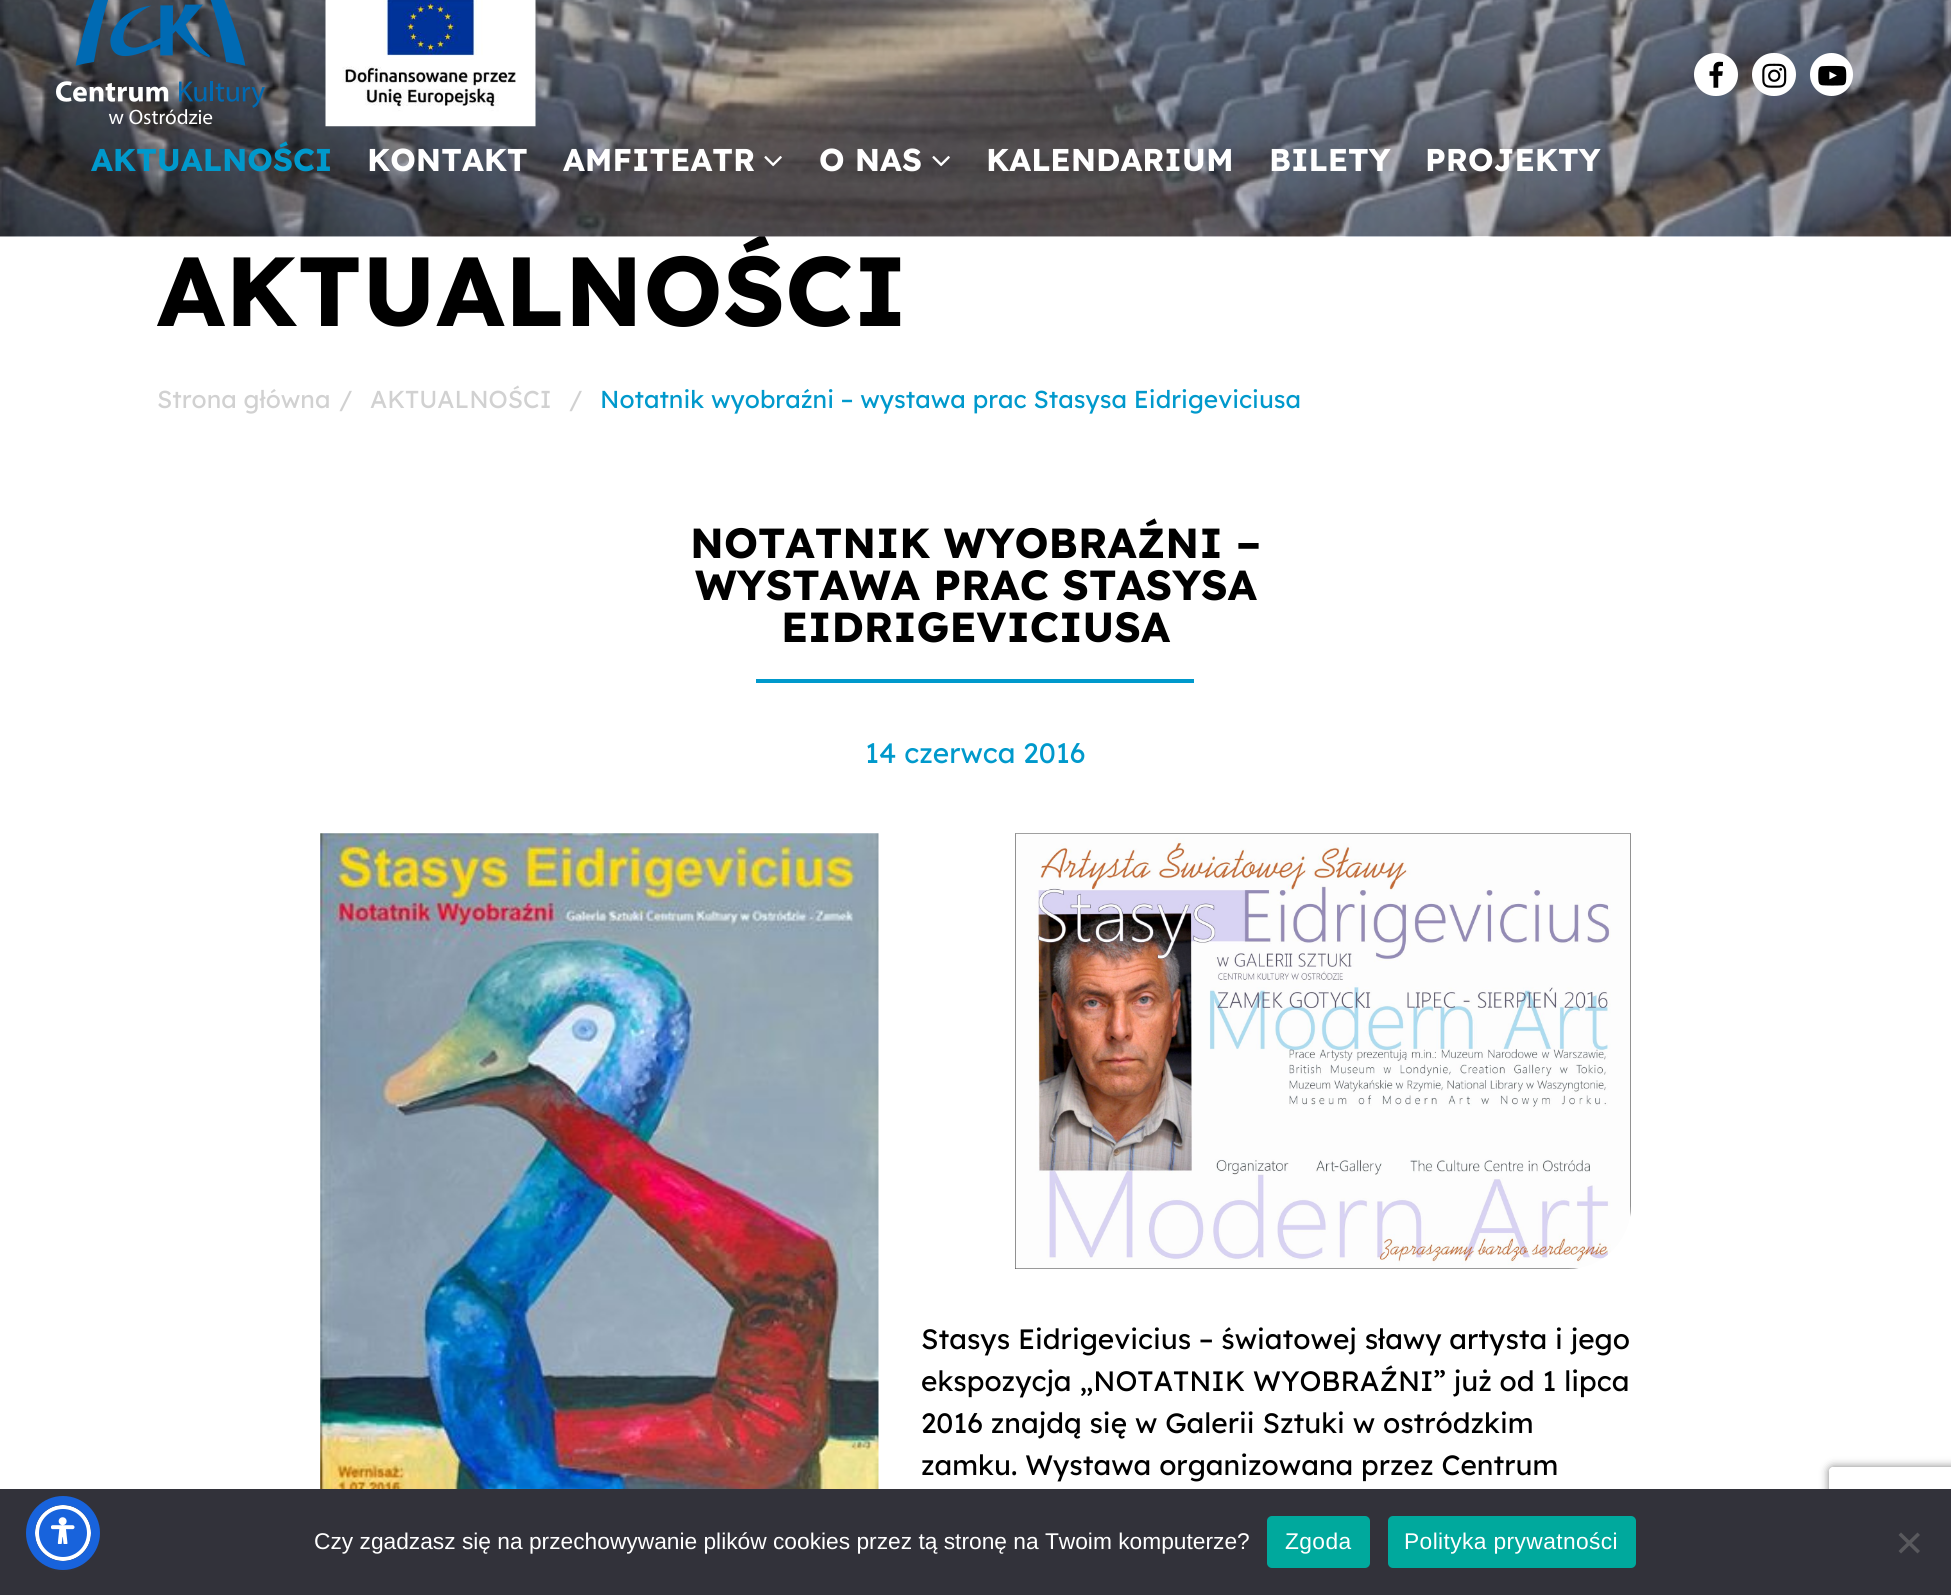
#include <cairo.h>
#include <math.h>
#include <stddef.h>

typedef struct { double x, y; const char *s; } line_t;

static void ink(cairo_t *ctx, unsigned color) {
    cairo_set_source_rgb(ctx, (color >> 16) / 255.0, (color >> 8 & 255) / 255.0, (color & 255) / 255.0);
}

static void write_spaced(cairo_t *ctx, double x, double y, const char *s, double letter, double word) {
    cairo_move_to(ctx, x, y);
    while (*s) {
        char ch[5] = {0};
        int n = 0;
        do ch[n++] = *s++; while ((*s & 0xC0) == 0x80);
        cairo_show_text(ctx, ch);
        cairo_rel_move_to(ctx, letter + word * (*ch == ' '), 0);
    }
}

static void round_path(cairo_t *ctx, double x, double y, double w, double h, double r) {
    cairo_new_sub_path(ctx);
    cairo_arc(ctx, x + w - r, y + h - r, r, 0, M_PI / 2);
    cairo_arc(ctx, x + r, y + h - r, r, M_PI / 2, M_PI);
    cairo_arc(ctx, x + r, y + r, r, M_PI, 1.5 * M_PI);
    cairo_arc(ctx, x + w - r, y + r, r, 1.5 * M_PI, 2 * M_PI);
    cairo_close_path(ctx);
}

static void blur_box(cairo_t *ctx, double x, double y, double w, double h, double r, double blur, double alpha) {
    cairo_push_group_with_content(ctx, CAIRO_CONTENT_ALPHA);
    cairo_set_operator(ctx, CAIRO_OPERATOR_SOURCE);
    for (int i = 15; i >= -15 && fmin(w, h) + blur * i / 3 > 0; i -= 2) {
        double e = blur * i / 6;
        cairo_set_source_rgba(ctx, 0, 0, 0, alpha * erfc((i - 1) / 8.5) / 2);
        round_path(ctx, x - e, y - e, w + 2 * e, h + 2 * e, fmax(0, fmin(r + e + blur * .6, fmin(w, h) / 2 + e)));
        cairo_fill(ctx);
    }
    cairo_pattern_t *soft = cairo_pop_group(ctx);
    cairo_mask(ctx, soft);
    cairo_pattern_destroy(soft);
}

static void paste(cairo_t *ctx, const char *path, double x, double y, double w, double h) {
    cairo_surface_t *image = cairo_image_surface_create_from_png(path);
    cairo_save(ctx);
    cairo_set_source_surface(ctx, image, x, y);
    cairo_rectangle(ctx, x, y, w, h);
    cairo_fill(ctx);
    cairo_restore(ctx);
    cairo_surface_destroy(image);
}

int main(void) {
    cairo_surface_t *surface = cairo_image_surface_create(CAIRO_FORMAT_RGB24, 1951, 1595);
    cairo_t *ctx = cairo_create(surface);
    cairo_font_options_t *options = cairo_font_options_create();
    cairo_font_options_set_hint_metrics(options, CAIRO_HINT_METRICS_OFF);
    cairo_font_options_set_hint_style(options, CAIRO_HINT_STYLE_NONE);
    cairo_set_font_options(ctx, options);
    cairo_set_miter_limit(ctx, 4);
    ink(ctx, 0xFFFFFF);
    cairo_paint(ctx);
    cairo_select_font_face(ctx, "Lexend", CAIRO_FONT_SLANT_NORMAL, CAIRO_FONT_WEIGHT_BOLD);
    cairo_set_font_size(ctx, 98);
    ink(ctx, 0x000000);
    cairo_move_to(ctx, 157, 326);
    cairo_show_text(ctx, "AKTUALNOŚCI");
    paste(ctx, "media/4.png", 0, 0, 1951, 237);
    ink(ctx, 0xFFFFFF);
    round_path(ctx, 1694, 53, 44, 43, 21.5);
    cairo_fill(ctx);
    paste(ctx, "media/1.png", 1709, 61, 14, 27);
    round_path(ctx, 1752, 53, 44, 43, 21.5);
    cairo_fill(ctx);
    paste(ctx, "media/2.png", 1762, 63, 25, 25);
    cairo_arc(ctx, 1831.5, 74.5, 21.5, 0, 2 * M_PI);
    cairo_fill(ctx);
    paste(ctx, "media/3.png", 1818, 65, 29, 21);
    paste(ctx, "media/5.png", 56, 0, 209, 125);
    paste(ctx, "media/6.png", 325, 0, 211, 127);
    cairo_set_font_size(ctx, 31.5);
    ink(ctx, 0x0099CC);
    cairo_move_to(ctx, 91, 171);
    cairo_show_text(ctx, "AKTUALNOŚCI");
    ink(ctx, 0xFFFFFF);
    cairo_move_to(ctx, 367, 171);
    cairo_show_text(ctx, "KONTAKT");
    cairo_move_to(ctx, 563, 171);
    cairo_show_text(ctx, "AMFITEATR");
    paste(ctx, "media/7.png", 764, 156, 18, 11);
    cairo_move_to(ctx, 819, 171);
    cairo_show_text(ctx, "O NAS");
    paste(ctx, "media/8.png", 932, 156, 18, 11);
    {
        static const line_t items[] = {
            {986, 171, "KALENDARIUM"},
            {1269, 171, "BILETY"},
            {1425, 171, "PROJEKTY"},
        };
        for (size_t i = 0; i < sizeof items / sizeof *items; i++) {
            cairo_move_to(ctx, items[i].x, items[i].y);
            cairo_show_text(ctx, items[i].s);
        }
    }
    cairo_select_font_face(ctx, "Lexend", CAIRO_FONT_SLANT_NORMAL, CAIRO_FONT_WEIGHT_NORMAL);
    cairo_set_font_size(ctx, 24.5);
    ink(ctx, 0xD1D1D1);
    {
        static const line_t items[] = {
            {157, 408, "Strona główna"},
            {339, 408, "/"},
            {370, 408, "AKTUALNOŚCI"},
            {569, 408, "/"},
        };
        for (size_t i = 0; i < sizeof items / sizeof *items; i++) {
            cairo_move_to(ctx, items[i].x, items[i].y);
            cairo_show_text(ctx, items[i].s);
        }
    }
    ink(ctx, 0x0099CC);
    cairo_move_to(ctx, 600, 408);
    cairo_show_text(ctx, "Notatnik wyobraźni – wystawa prac Stasysa Eidrigeviciusa");
    cairo_select_font_face(ctx, "Lexend", CAIRO_FONT_SLANT_NORMAL, CAIRO_FONT_WEIGHT_BOLD);
    cairo_set_font_size(ctx, 42);
    ink(ctx, 0x000000);
    {
        static const line_t items[] = {
            {690, 558, "NOTATNIK WYOBRAŹNI –"},
            {695, 600, "WYSTAWA PRAC STASYSA"},
            {781, 642, "EIDRIGEVICIUSA"},
        };
        for (size_t i = 0; i < sizeof items / sizeof *items; i++) {
            cairo_move_to(ctx, items[i].x, items[i].y);
            cairo_show_text(ctx, items[i].s);
        }
    }
    ink(ctx, 0x0099CC);
    cairo_rectangle(ctx, 756, 679, 438, 4);
    cairo_fill(ctx);
    cairo_select_font_face(ctx, "Lexend", CAIRO_FONT_SLANT_NORMAL, CAIRO_FONT_WEIGHT_NORMAL);
    cairo_set_font_size(ctx, 28);
    cairo_move_to(ctx, 865, 763);
    cairo_show_text(ctx, "14 czerwca 2016");
    paste(ctx, "media/9.png", 1015, 833, 616, 436);
    paste(ctx, "media/10.png", 320, 833, 559, 656);
    ink(ctx, 0x000000);
    {
        static const line_t items[] = {
            {921, 1349, "Stasys Eidrigevicius – światowej sławy artysta i jego"},
            {921, 1391, "ekspozycja „NOTATNIK WYOBRAŹNI” już od 1 lipca"},
            {921, 1433, "2016 znajdą się w Galerii Sztuki w ostródzkim"},
            {921, 1475, "zamku. Wystawa organizowana przez Centrum"},
        };
        for (size_t i = 0; i < sizeof items / sizeof *items; i++) {
            cairo_move_to(ctx, items[i].x, items[i].y);
            cairo_show_text(ctx, items[i].s);
        }
    }
    cairo_save(ctx);
    cairo_set_fill_rule(ctx, CAIRO_FILL_RULE_EVEN_ODD);
    cairo_new_path(ctx);
    cairo_move_to(ctx, 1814, 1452);
    cairo_line_to(ctx, 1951, 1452);
    cairo_line_to(ctx, 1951, 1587);
    cairo_line_to(ctx, 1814, 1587);
    cairo_close_path(ctx);
    cairo_move_to(ctx, 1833, 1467);
    cairo_line_to(ctx, 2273, 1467);
    cairo_curve_to(ctx, 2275, 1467, 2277, 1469, 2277, 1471);
    cairo_line_to(ctx, 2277, 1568);
    cairo_curve_to(ctx, 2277, 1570, 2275, 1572, 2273, 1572);
    cairo_line_to(ctx, 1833, 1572);
    cairo_curve_to(ctx, 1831, 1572, 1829, 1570, 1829, 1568);
    cairo_line_to(ctx, 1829, 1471);
    cairo_curve_to(ctx, 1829, 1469, 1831, 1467, 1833, 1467);
    cairo_close_path(ctx);
    cairo_clip(ctx);
    ink(ctx, 0x808080);
    blur_box(ctx, 1829, 1467, 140, 105, 4, 4.5, 1);
    cairo_restore(ctx);
    ink(ctx, 0x32323A);
    cairo_rectangle(ctx, 0, 1489, 1951, 106);
    cairo_fill(ctx);
    ink(ctx, 0x5D6494);
    blur_box(ctx, 35, 1509, 56, 56, 28, 3.5, 0.2);
    ink(ctx, 0x1863DC);
    cairo_arc(ctx, 63, 1533, 26, 0, 2 * M_PI);
    cairo_fill_preserve(ctx);
    ink(ctx, 0xFFFFFF);
    cairo_set_line_width(ctx, 4);
    cairo_stroke(ctx);
    cairo_arc(ctx, 63, 1533, 32.5, 0, 2 * M_PI);
    ink(ctx, 0x1863DC);
    cairo_set_line_width(ctx, 9);
    cairo_stroke(ctx);
    paste(ctx, "media/11.png", 51, 1517, 24, 27);
    cairo_select_font_face(ctx, "Liberation Sans", CAIRO_FONT_SLANT_NORMAL, CAIRO_FONT_WEIGHT_NORMAL);
    cairo_set_font_size(ctx, 22.75);
    ink(ctx, 0xFFFFFF);
    cairo_move_to(ctx, 314, 1549);
    cairo_show_text(ctx, "Czy zgadzasz się na przechowywanie plików cookies przez tą stronę na Twoim komputerze?");
    ink(ctx, 0x00A99D);
    round_path(ctx, 1267, 1516, 103, 52, 5);
    cairo_fill(ctx);
    ink(ctx, 0xFFFFFF);
    write_spaced(ctx, 1285, 1549, "Zgoda", 0.4, 0);
    ink(ctx, 0x00A99D);
    round_path(ctx, 1388, 1516, 248, 52, 5);
    cairo_fill(ctx);
    ink(ctx, 0xFFFFFF);
    write_spaced(ctx, 1404, 1549, "Polityka prywatności", 0.4, 0);
    ink(ctx, 0x59595D);
    cairo_new_path(ctx);
    cairo_move_to(ctx, 1917.5, 1532.5);
    cairo_line_to(ctx, 1920, 1535);
    cairo_line_to(ctx, 1901, 1553.5);
    cairo_line_to(ctx, 1898.5, 1551);
    cairo_close_path(ctx);
    cairo_fill(ctx);
    cairo_new_path(ctx);
    cairo_move_to(ctx, 1898.5, 1535);
    cairo_line_to(ctx, 1901, 1532.5);
    cairo_line_to(ctx, 1920, 1551);
    cairo_line_to(ctx, 1917.5, 1553.5);
    cairo_close_path(ctx);
    cairo_fill(ctx);
    cairo_surface_write_to_png(surface, "image.png");
    cairo_font_options_destroy(options);
    cairo_destroy(ctx);
    cairo_surface_destroy(surface);
    return 0;
}
